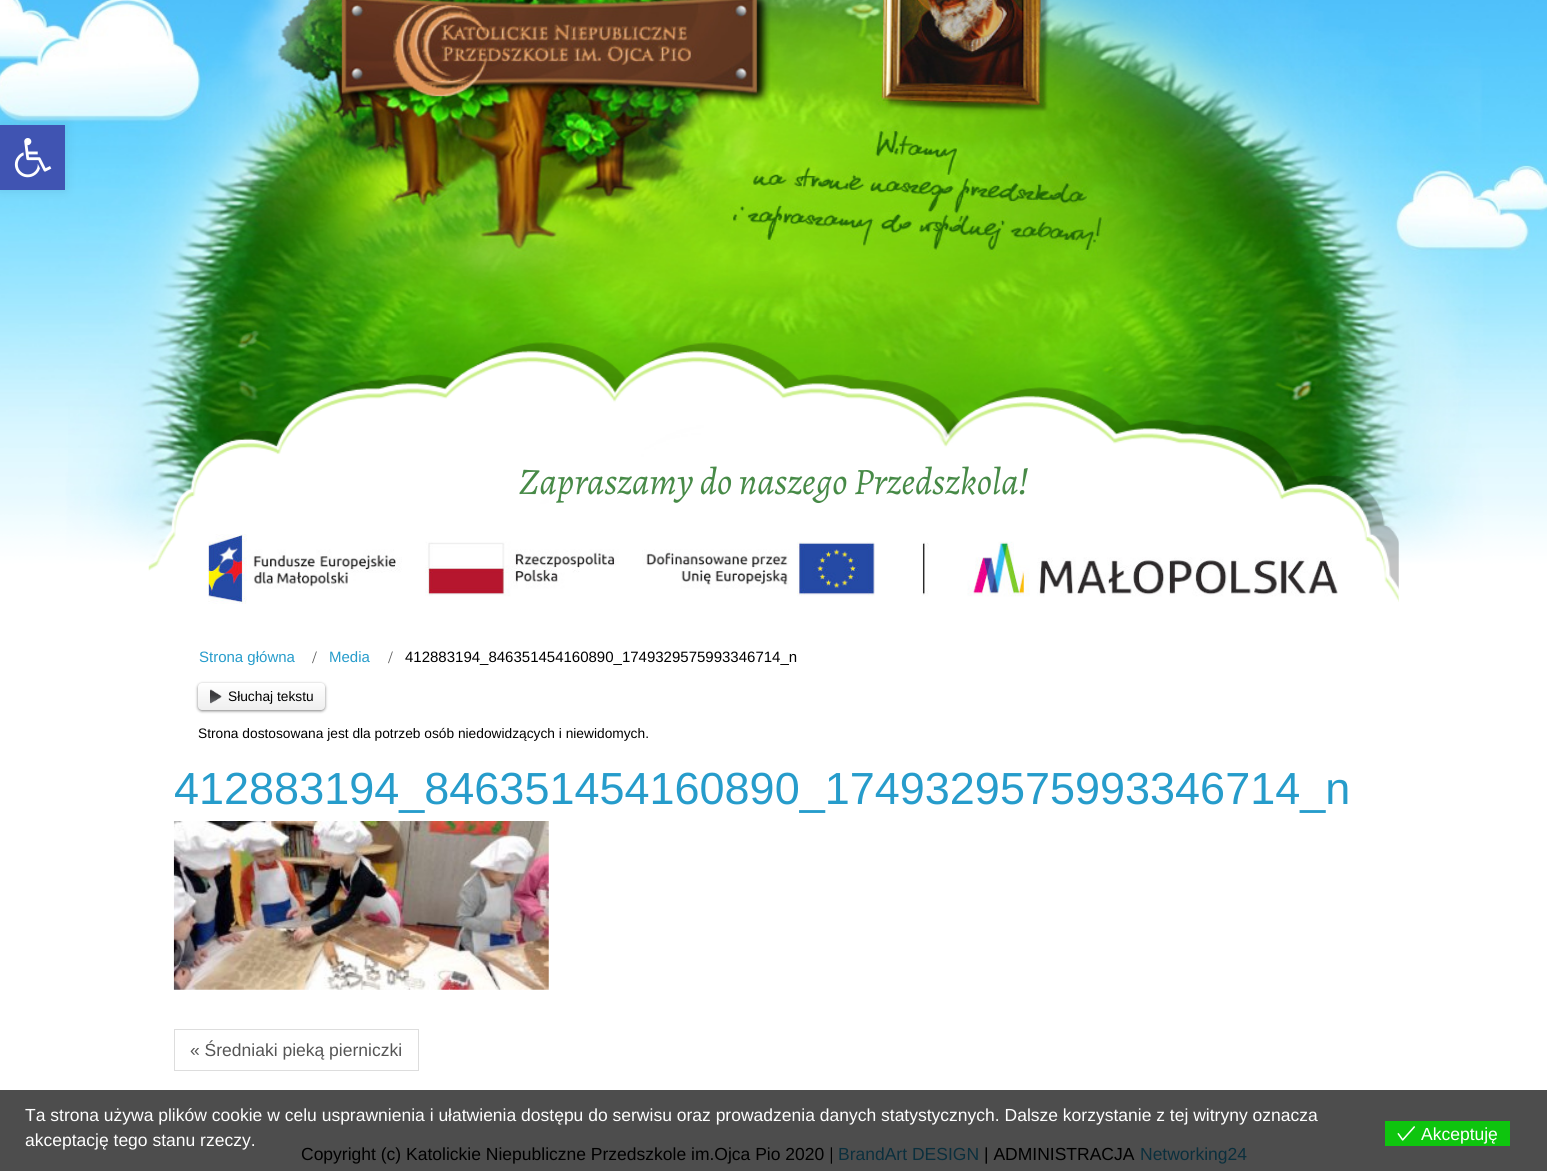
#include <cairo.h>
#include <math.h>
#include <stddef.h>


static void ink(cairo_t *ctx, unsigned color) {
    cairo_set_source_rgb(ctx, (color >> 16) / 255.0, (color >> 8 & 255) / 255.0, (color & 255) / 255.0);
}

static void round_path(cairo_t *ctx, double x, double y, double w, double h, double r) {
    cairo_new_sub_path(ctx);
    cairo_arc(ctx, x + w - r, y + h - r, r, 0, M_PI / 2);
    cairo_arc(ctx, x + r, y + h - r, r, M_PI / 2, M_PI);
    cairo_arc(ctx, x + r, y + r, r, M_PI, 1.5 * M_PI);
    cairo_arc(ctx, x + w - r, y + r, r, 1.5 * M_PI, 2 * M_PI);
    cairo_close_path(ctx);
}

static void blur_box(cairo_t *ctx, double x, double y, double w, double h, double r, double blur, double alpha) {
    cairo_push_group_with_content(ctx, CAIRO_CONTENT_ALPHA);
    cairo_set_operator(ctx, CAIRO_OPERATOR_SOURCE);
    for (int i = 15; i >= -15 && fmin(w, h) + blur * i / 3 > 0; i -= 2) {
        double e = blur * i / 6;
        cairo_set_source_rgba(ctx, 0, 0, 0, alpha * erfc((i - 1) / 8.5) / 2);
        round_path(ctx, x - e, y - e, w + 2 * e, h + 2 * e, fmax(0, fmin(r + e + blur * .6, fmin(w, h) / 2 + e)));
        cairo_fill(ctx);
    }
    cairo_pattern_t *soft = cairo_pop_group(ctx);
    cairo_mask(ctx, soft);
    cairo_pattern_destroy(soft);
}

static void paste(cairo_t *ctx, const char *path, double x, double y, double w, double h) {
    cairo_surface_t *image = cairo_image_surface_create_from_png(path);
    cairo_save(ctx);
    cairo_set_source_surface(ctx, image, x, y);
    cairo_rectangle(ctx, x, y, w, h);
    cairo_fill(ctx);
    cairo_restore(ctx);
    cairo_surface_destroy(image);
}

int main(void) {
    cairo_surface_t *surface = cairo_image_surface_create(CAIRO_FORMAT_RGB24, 1547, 1171);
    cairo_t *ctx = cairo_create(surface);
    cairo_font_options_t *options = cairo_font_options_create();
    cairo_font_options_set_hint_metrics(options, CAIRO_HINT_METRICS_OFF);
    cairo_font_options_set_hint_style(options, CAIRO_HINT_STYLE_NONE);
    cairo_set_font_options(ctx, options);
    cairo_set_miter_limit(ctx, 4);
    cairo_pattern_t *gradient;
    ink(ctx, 0xFFFFFF);
    cairo_paint(ctx);
    ink(ctx, 0x4D4D4D);
    cairo_rectangle(ctx, 0, 1090, 1547, 81);
    cairo_fill(ctx);
    paste(ctx, "media/1.png", 0, 0, 1547, 564);
    ink(ctx, 0x000000);
    blur_box(ctx, 0, 125, 65, 65, 0, 6, 0.1);
    ink(ctx, 0x4054B2);
    cairo_rectangle(ctx, 0, 125, 65, 65);
    cairo_fill(ctx);
    paste(ctx, "media/2.png", 14, 138, 38, 40);
    paste(ctx, "media/3.png", 148, 342, 1251, 260);
    cairo_select_font_face(ctx, "Alegreya", CAIRO_FONT_SLANT_ITALIC, CAIRO_FONT_WEIGHT_NORMAL);
    cairo_set_font_size(ctx, 37.5);
    ink(ctx, 0x478A47);
    cairo_move_to(ctx, 519, 494);
    cairo_show_text(ctx, "Zapraszamy do naszego Przedszkola!");
    paste(ctx, "media/4.png", 208, 534, 1130, 70);
    cairo_select_font_face(ctx, "Liberation Sans", CAIRO_FONT_SLANT_NORMAL, CAIRO_FONT_WEIGHT_NORMAL);
    cairo_set_font_size(ctx, 15);
    ink(ctx, 0x269CCB);
    cairo_move_to(ctx, 199, 662);
    cairo_show_text(ctx, "Strona główna");
    cairo_select_font_face(ctx, "Liberation Serif", CAIRO_FONT_SLANT_NORMAL, CAIRO_FONT_WEIGHT_NORMAL);
    cairo_set_font_size(ctx, 17.5);
    ink(ctx, 0x555555);
    cairo_move_to(ctx, 312, 663);
    cairo_show_text(ctx, "/");
    cairo_select_font_face(ctx, "Liberation Sans", CAIRO_FONT_SLANT_NORMAL, CAIRO_FONT_WEIGHT_NORMAL);
    cairo_set_font_size(ctx, 15);
    ink(ctx, 0x269CCB);
    cairo_move_to(ctx, 329, 662);
    cairo_show_text(ctx, "Media");
    cairo_select_font_face(ctx, "Liberation Serif", CAIRO_FONT_SLANT_NORMAL, CAIRO_FONT_WEIGHT_NORMAL);
    cairo_set_font_size(ctx, 17.5);
    ink(ctx, 0x555555);
    cairo_move_to(ctx, 388, 663);
    cairo_show_text(ctx, "/");
    cairo_select_font_face(ctx, "Liberation Sans", CAIRO_FONT_SLANT_NORMAL, CAIRO_FONT_WEIGHT_NORMAL);
    cairo_set_font_size(ctx, 15);
    ink(ctx, 0x000000);
    cairo_move_to(ctx, 405, 662);
    cairo_show_text(ctx, "412883194_846351454160890_1749329575993346714_n");
    ink(ctx, 0x808080);
    blur_box(ctx, 198, 684, 127, 27, 4, 1.5, 1);
    gradient = cairo_pattern_create_linear(261, 683, 261, 710);
    cairo_pattern_add_color_stop_rgba(gradient, 0, 1, 1, 1, 1);
    cairo_pattern_add_color_stop_rgba(gradient, 1, 0.937, 0.937, 0.937, 1);
    cairo_set_source(ctx, gradient);
    cairo_pattern_destroy(gradient);
    round_path(ctx, 198, 683, 127, 27, 4);
    cairo_fill(ctx);
    paste(ctx, "media/5.png", 210, 689, 12, 15);
    cairo_set_font_size(ctx, 13.75);
    ink(ctx, 0x000000);
    cairo_move_to(ctx, 228, 701);
    cairo_show_text(ctx, "Słuchaj tekstu");
    cairo_move_to(ctx, 198, 738);
    cairo_show_text(ctx, "Strona dostosowana jest dla potrzeb osób niedowidzących i niewidomych.");
    cairo_set_font_size(ctx, 45);
    ink(ctx, 0x269CCB);
    cairo_move_to(ctx, 174, 804);
    cairo_show_text(ctx, "412883194_846351454160890_1749329575993346714_n");
    paste(ctx, "media/6.png", 173, 821, 376, 169);
    cairo_rectangle(ctx, 174.5, 1029.5, 244, 41);
    ink(ctx, 0xDDDDDD);
    cairo_set_line_width(ctx, 1);
    cairo_stroke(ctx);
    cairo_set_font_size(ctx, 17.5);
    ink(ctx, 0x555555);
    cairo_move_to(ctx, 190, 1056);
    cairo_show_text(ctx, "« Średniaki pieką pierniczki");
    ink(ctx, 0xFFFFFF);
    cairo_move_to(ctx, 25, 1121);
    cairo_show_text(ctx, "Ta strona używa plików cookie w celu usprawnienia i ułatwienia dostępu do serwisu oraz prowadzenia danych statystycznych. Dalsze korzystanie z tej witryny oznacza");
    cairo_move_to(ctx, 25, 1146);
    cairo_show_text(ctx, "akceptację tego stanu rzeczy.");
    ink(ctx, 0x0EC50E);
    cairo_rectangle(ctx, 1385, 1121, 125, 25);
    cairo_fill(ctx);
    paste(ctx, "media/7.png", 1397, 1126, 18, 15);
    ink(ctx, 0xFFFFFF);
    cairo_move_to(ctx, 1421, 1140);
    cairo_show_text(ctx, "Akceptuję");
    ink(ctx, 0x000000);
    cairo_move_to(ctx, 301, 1160);
    cairo_show_text(ctx, "Copyright (c) Katolickie Niepubliczne Przedszkole im.Ojca Pio 2020 |");
    ink(ctx, 0x0B2F3D);
    cairo_move_to(ctx, 838, 1160);
    cairo_show_text(ctx, "BrandArt DESIGN");
    ink(ctx, 0x000000);
    cairo_move_to(ctx, 984, 1160);
    cairo_show_text(ctx, "| ADMINISTRACJA");
    ink(ctx, 0x0B2F3D);
    cairo_move_to(ctx, 1140, 1160);
    cairo_show_text(ctx, "Networking24");
    cairo_surface_write_to_png(surface, "image.png");
    cairo_font_options_destroy(options);
    cairo_destroy(ctx);
    cairo_surface_destroy(surface);
    return 0;
}
